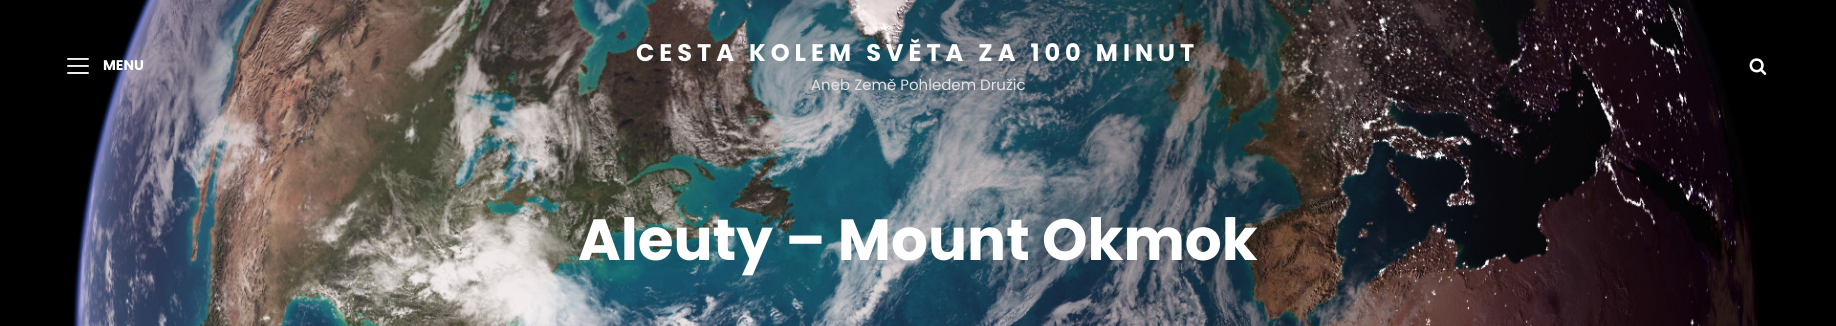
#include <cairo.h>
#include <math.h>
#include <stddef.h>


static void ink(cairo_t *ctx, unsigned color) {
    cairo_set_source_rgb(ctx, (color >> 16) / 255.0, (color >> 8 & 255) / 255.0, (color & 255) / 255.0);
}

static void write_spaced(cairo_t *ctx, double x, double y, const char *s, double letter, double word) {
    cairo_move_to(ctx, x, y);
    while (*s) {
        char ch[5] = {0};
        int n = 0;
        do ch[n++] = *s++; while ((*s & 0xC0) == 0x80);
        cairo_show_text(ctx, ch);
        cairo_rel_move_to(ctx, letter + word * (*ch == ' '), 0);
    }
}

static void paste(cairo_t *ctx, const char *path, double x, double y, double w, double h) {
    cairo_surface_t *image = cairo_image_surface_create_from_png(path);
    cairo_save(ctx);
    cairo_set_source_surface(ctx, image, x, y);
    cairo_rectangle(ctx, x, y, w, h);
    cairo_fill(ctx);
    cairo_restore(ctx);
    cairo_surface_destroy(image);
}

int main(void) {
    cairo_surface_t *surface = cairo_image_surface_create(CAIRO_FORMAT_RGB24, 1836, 326);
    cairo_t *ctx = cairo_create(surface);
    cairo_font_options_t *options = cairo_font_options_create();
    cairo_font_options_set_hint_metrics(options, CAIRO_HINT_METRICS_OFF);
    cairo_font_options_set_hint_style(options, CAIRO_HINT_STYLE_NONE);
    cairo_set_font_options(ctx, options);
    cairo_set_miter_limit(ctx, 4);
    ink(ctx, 0xFFFFFF);
    cairo_paint(ctx);
    paste(ctx, "media/3.png", 0, 0, 1836, 326);
    paste(ctx, "media/1.png", 67, 58, 22, 16);
    cairo_select_font_face(ctx, "Poppins", CAIRO_FONT_SLANT_NORMAL, CAIRO_FONT_WEIGHT_BOLD);
    cairo_set_font_size(ctx, 14);
    ink(ctx, 0xFFFFFF);
    cairo_move_to(ctx, 103, 70);
    cairo_show_text(ctx, "MENU");
    cairo_set_font_size(ctx, 24);
    write_spaced(ctx, 636, 61, "CESTA KOLEM SVĚTA ZA 100 MINUT", 5, 0);
    cairo_select_font_face(ctx, "Poppins", CAIRO_FONT_SLANT_NORMAL, CAIRO_FONT_WEIGHT_NORMAL);
    cairo_set_font_size(ctx, 15);
    ink(ctx, 0xE0E3E5);
    cairo_move_to(ctx, 811, 90);
    cairo_show_text(ctx, "Aneb Země Pohledem Družic");
    paste(ctx, "media/2.png", 1749, 58, 18, 17);
    cairo_select_font_face(ctx, "Poppins", CAIRO_FONT_SLANT_NORMAL, CAIRO_FONT_WEIGHT_BOLD);
    cairo_set_font_size(ctx, 58);
    ink(ctx, 0xFFFFFF);
    cairo_move_to(ctx, 578, 260);
    cairo_show_text(ctx, "Aleuty – Mount Okmok");
    cairo_surface_write_to_png(surface, "image.png");
    cairo_font_options_destroy(options);
    cairo_destroy(ctx);
    cairo_surface_destroy(surface);
    return 0;
}
